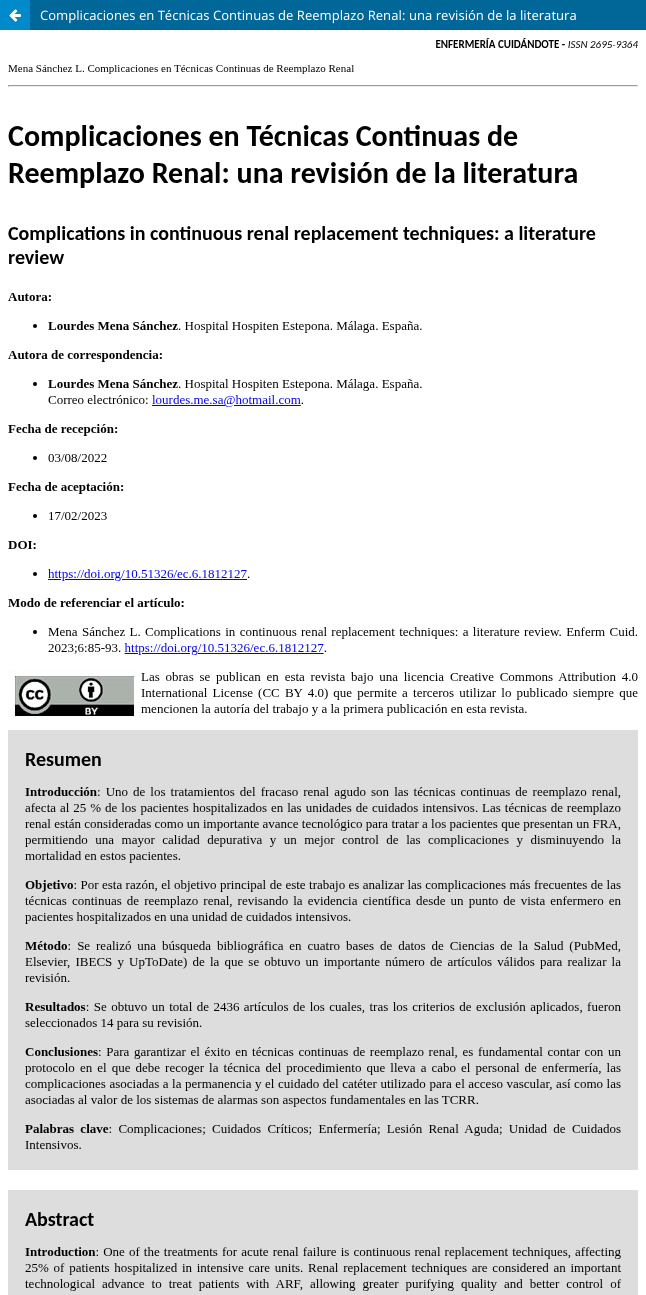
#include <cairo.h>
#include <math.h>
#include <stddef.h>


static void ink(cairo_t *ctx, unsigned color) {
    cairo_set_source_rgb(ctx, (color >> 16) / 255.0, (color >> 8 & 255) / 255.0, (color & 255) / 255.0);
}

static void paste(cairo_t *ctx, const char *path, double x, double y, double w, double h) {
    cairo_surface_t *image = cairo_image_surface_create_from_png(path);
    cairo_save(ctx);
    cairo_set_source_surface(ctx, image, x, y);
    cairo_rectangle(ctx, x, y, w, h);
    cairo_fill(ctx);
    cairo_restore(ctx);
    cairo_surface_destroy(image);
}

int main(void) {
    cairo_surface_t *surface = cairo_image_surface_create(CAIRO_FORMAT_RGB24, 646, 1295);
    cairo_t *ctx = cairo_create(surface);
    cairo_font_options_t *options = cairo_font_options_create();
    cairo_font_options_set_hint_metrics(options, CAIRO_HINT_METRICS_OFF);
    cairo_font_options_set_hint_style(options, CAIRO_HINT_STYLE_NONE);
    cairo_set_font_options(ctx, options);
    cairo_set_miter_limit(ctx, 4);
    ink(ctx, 0xFFFFFF);
    cairo_paint(ctx);
    ink(ctx, 0x006798);
    cairo_rectangle(ctx, 30, 0, 616, 30);
    cairo_fill(ctx);
    ink(ctx, 0x008ACB);
    cairo_rectangle(ctx, 0, 0, 30, 30);
    cairo_fill(ctx);
    paste(ctx, "media/1.png", 9, 9, 12, 13);
    cairo_select_font_face(ctx, "Noto Sans", CAIRO_FONT_SLANT_NORMAL, CAIRO_FONT_WEIGHT_NORMAL);
    cairo_set_font_size(ctx, 13);
    ink(ctx, 0xFFFFFF);
    cairo_move_to(ctx, 40, 20);
    cairo_show_text(ctx, "Complicaciones en Técnicas Continuas de Reemplazo Renal: una revisión de la literatura");
    paste(ctx, "media/2.png", 8, 38, 630, 1257);
    cairo_surface_write_to_png(surface, "image.png");
    cairo_font_options_destroy(options);
    cairo_destroy(ctx);
    cairo_surface_destroy(surface);
    return 0;
}
